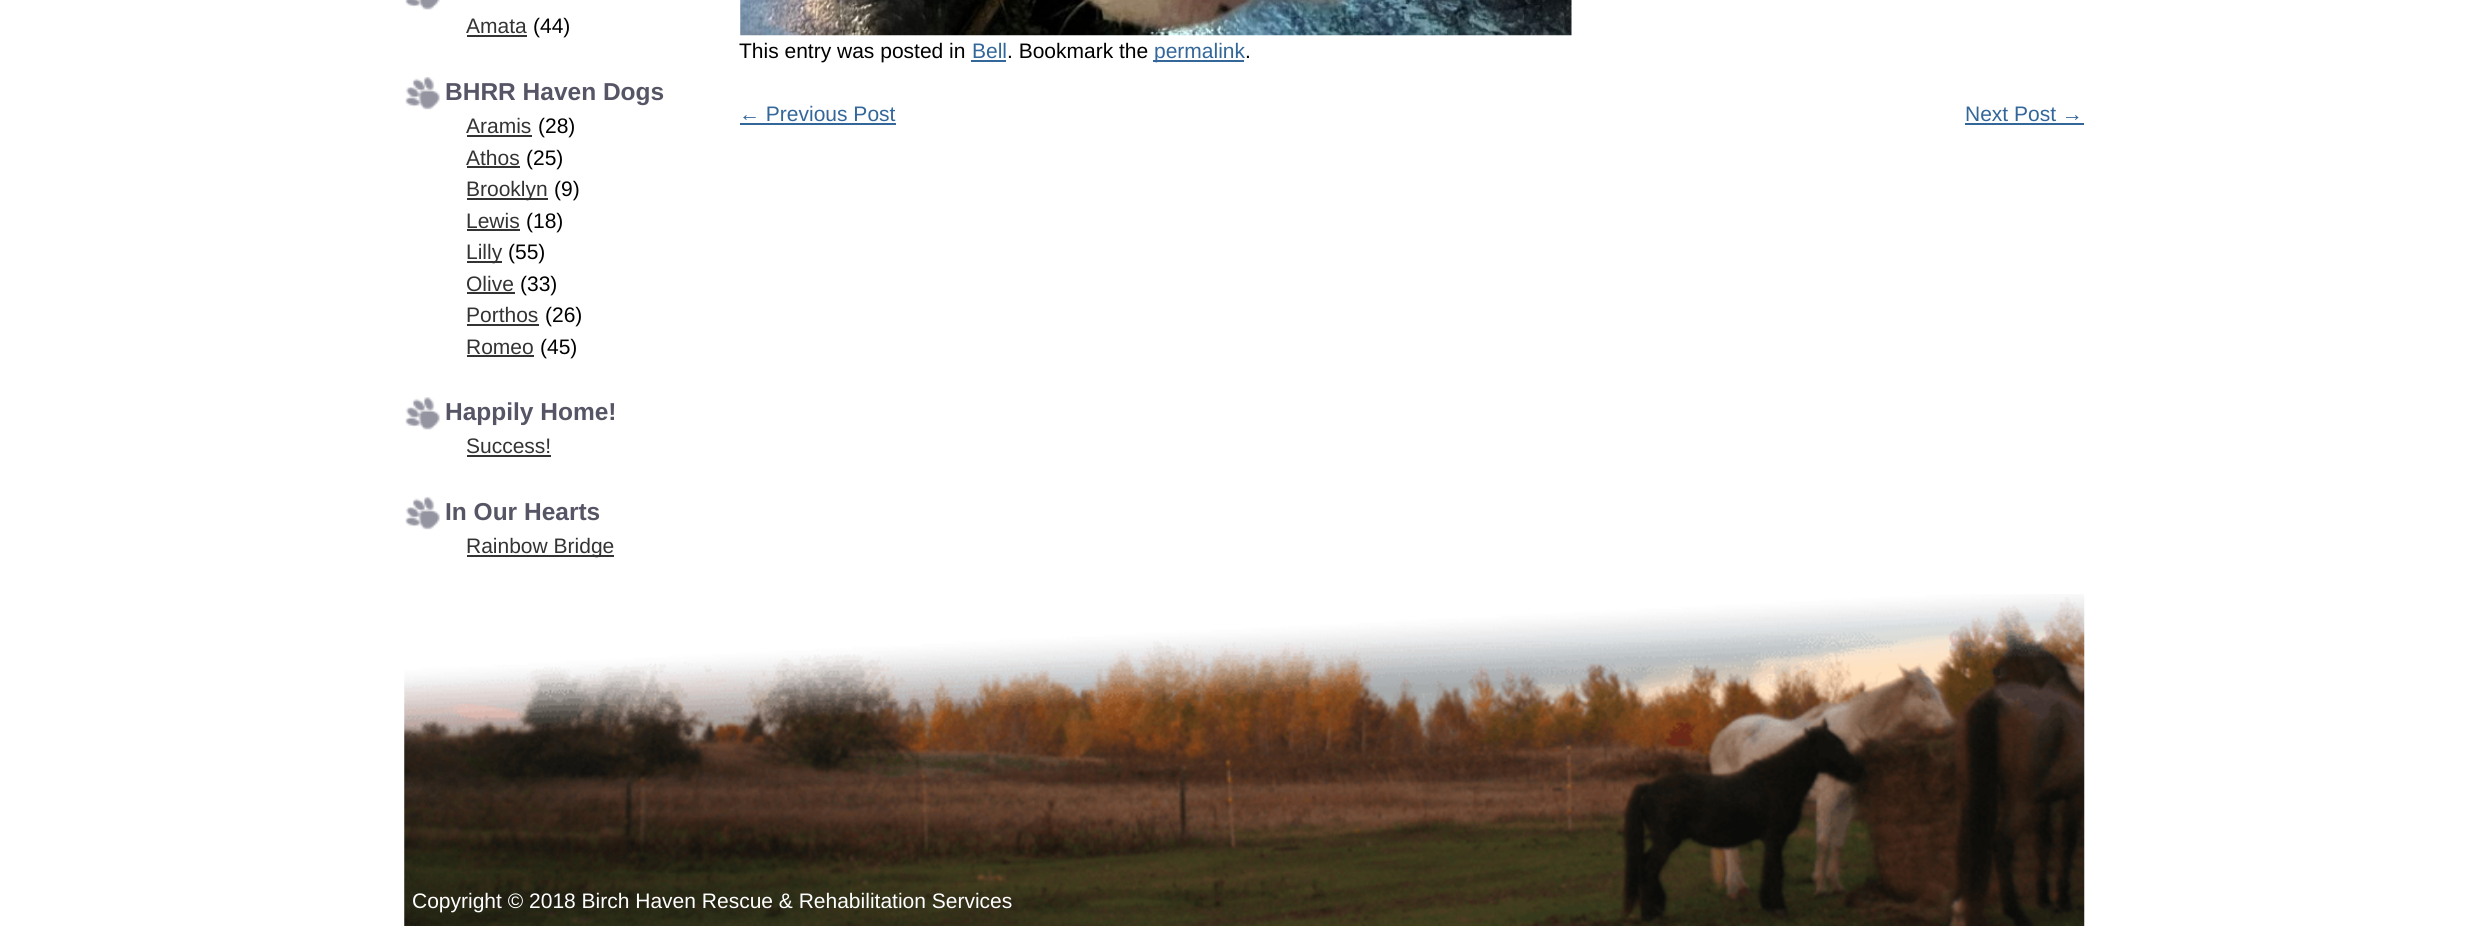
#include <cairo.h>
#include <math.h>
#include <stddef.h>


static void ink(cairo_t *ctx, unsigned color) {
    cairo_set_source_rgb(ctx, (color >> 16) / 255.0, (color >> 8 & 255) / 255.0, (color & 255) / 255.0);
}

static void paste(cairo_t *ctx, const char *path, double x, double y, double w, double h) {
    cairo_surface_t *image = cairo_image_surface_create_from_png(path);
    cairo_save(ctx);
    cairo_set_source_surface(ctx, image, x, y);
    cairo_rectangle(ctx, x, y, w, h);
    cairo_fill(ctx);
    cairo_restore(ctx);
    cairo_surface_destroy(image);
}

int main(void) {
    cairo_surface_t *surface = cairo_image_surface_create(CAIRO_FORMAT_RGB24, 2486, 942);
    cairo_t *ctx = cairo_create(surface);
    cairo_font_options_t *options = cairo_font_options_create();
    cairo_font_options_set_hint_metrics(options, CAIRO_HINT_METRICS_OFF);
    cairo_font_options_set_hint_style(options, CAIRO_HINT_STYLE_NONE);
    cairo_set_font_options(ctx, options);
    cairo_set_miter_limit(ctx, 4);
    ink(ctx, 0xFFFFFF);
    cairo_paint(ctx);
    paste(ctx, "media/1.png", 405, 0, 35, 10);
    cairo_select_font_face(ctx, "Liberation Sans", CAIRO_FONT_SLANT_NORMAL, CAIRO_FONT_WEIGHT_NORMAL);
    cairo_set_font_size(ctx, 21);
    ink(ctx, 0x333333);
    cairo_move_to(ctx, 466, 33);
    cairo_show_text(ctx, "Amata");
    cairo_rectangle(ctx, 467, 35, 60, 2);
    cairo_fill(ctx);
    ink(ctx, 0x000000);
    cairo_move_to(ctx, 533, 33);
    cairo_show_text(ctx, "(44)");
    paste(ctx, "media/2.png", 405, 76, 35, 34);
    cairo_select_font_face(ctx, "Liberation Sans", CAIRO_FONT_SLANT_NORMAL, CAIRO_FONT_WEIGHT_BOLD);
    cairo_set_font_size(ctx, 24.5);
    ink(ctx, 0x555566);
    cairo_move_to(ctx, 445, 100);
    cairo_show_text(ctx, "BHRR Haven Dogs");
    cairo_select_font_face(ctx, "Liberation Sans", CAIRO_FONT_SLANT_NORMAL, CAIRO_FONT_WEIGHT_NORMAL);
    cairo_set_font_size(ctx, 21);
    ink(ctx, 0x333333);
    cairo_move_to(ctx, 466, 133);
    cairo_show_text(ctx, "Aramis");
    cairo_rectangle(ctx, 467, 135, 65, 2);
    cairo_fill(ctx);
    ink(ctx, 0x000000);
    cairo_move_to(ctx, 538, 133);
    cairo_show_text(ctx, "(28)");
    ink(ctx, 0x333333);
    cairo_move_to(ctx, 466, 165);
    cairo_show_text(ctx, "Athos");
    cairo_rectangle(ctx, 467, 166, 53, 2);
    cairo_fill(ctx);
    ink(ctx, 0x000000);
    cairo_move_to(ctx, 526, 165);
    cairo_show_text(ctx, "(25)");
    ink(ctx, 0x333333);
    cairo_rectangle(ctx, 467, 198, 81, 2);
    cairo_fill(ctx);
    cairo_move_to(ctx, 466, 196);
    cairo_show_text(ctx, "Brooklyn");
    ink(ctx, 0x000000);
    cairo_move_to(ctx, 554, 196);
    cairo_show_text(ctx, "(9)");
    ink(ctx, 0x333333);
    cairo_move_to(ctx, 466, 228);
    cairo_show_text(ctx, "Lewis");
    cairo_rectangle(ctx, 467, 229, 53, 2);
    cairo_fill(ctx);
    ink(ctx, 0x000000);
    cairo_move_to(ctx, 526, 228);
    cairo_show_text(ctx, "(18)");
    ink(ctx, 0x333333);
    cairo_rectangle(ctx, 467, 261, 35, 2);
    cairo_fill(ctx);
    cairo_move_to(ctx, 466, 259);
    cairo_show_text(ctx, "Lilly");
    ink(ctx, 0x000000);
    cairo_move_to(ctx, 508, 259);
    cairo_show_text(ctx, "(55)");
    ink(ctx, 0x333333);
    cairo_move_to(ctx, 466, 291);
    cairo_show_text(ctx, "Olive");
    cairo_rectangle(ctx, 467, 292, 48, 2);
    cairo_fill(ctx);
    ink(ctx, 0x000000);
    cairo_move_to(ctx, 520, 291);
    cairo_show_text(ctx, "(33)");
    ink(ctx, 0x333333);
    cairo_move_to(ctx, 466, 322);
    cairo_show_text(ctx, "Porthos");
    cairo_rectangle(ctx, 467, 324, 72, 2);
    cairo_fill(ctx);
    ink(ctx, 0x000000);
    cairo_move_to(ctx, 545, 322);
    cairo_show_text(ctx, "(26)");
    ink(ctx, 0x333333);
    cairo_move_to(ctx, 466, 354);
    cairo_show_text(ctx, "Romeo");
    cairo_rectangle(ctx, 467, 355, 67, 2);
    cairo_fill(ctx);
    ink(ctx, 0x000000);
    cairo_move_to(ctx, 540, 354);
    cairo_show_text(ctx, "(45)");
    paste(ctx, "media/3.png", 405, 397, 35, 33);
    cairo_select_font_face(ctx, "Liberation Sans", CAIRO_FONT_SLANT_NORMAL, CAIRO_FONT_WEIGHT_BOLD);
    cairo_set_font_size(ctx, 24.5);
    ink(ctx, 0x555566);
    cairo_move_to(ctx, 445, 420);
    cairo_show_text(ctx, "Happily Home!");
    cairo_select_font_face(ctx, "Liberation Sans", CAIRO_FONT_SLANT_NORMAL, CAIRO_FONT_WEIGHT_NORMAL);
    cairo_set_font_size(ctx, 21);
    ink(ctx, 0x333333);
    cairo_move_to(ctx, 466, 453);
    cairo_show_text(ctx, "Success!");
    cairo_rectangle(ctx, 467, 455, 84, 2);
    cairo_fill(ctx);
    paste(ctx, "media/4.png", 405, 496, 35, 34);
    cairo_select_font_face(ctx, "Liberation Sans", CAIRO_FONT_SLANT_NORMAL, CAIRO_FONT_WEIGHT_BOLD);
    cairo_set_font_size(ctx, 24.5);
    ink(ctx, 0x555566);
    cairo_move_to(ctx, 445, 520);
    cairo_show_text(ctx, "In Our Hearts");
    ink(ctx, 0x333333);
    cairo_rectangle(ctx, 467, 555, 147, 2);
    cairo_fill(ctx);
    cairo_select_font_face(ctx, "Liberation Sans", CAIRO_FONT_SLANT_NORMAL, CAIRO_FONT_WEIGHT_NORMAL);
    cairo_set_font_size(ctx, 21);
    cairo_move_to(ctx, 466, 553);
    cairo_show_text(ctx, "Rainbow Bridge");
    paste(ctx, "media/5.png", 740, 0, 832, 36);
    ink(ctx, 0x000000);
    cairo_move_to(ctx, 739, 58);
    cairo_show_text(ctx, "This entry was posted in");
    ink(ctx, 0x336699);
    cairo_move_to(ctx, 972, 58);
    cairo_show_text(ctx, "Bell");
    cairo_rectangle(ctx, 971, 60, 35, 2);
    cairo_fill(ctx);
    ink(ctx, 0x000000);
    cairo_move_to(ctx, 1007, 58);
    cairo_show_text(ctx, ". Bookmark the");
    ink(ctx, 0x336699);
    cairo_rectangle(ctx, 1153, 60, 91, 2);
    cairo_fill(ctx);
    cairo_move_to(ctx, 1154, 58);
    cairo_show_text(ctx, "permalink");
    ink(ctx, 0x000000);
    cairo_move_to(ctx, 1245, 58);
    cairo_show_text(ctx, ".");
    ink(ctx, 0x336699);
    cairo_move_to(ctx, 739, 121);
    cairo_show_text(ctx, "← Previous Post");
    cairo_rectangle(ctx, 740, 123, 156, 2);
    cairo_fill(ctx);
    cairo_move_to(ctx, 1965, 121);
    cairo_show_text(ctx, "Next Post →");
    cairo_rectangle(ctx, 1965, 123, 119, 2);
    cairo_fill(ctx);
    paste(ctx, "media/6.png", 404, 594, 1681, 332);
    ink(ctx, 0xFFFFFF);
    cairo_move_to(ctx, 412, 908);
    cairo_show_text(ctx, "Copyright © 2018 Birch Haven Rescue & Rehabilitation Services");
    cairo_surface_write_to_png(surface, "image.png");
    cairo_font_options_destroy(options);
    cairo_destroy(ctx);
    cairo_surface_destroy(surface);
    return 0;
}
